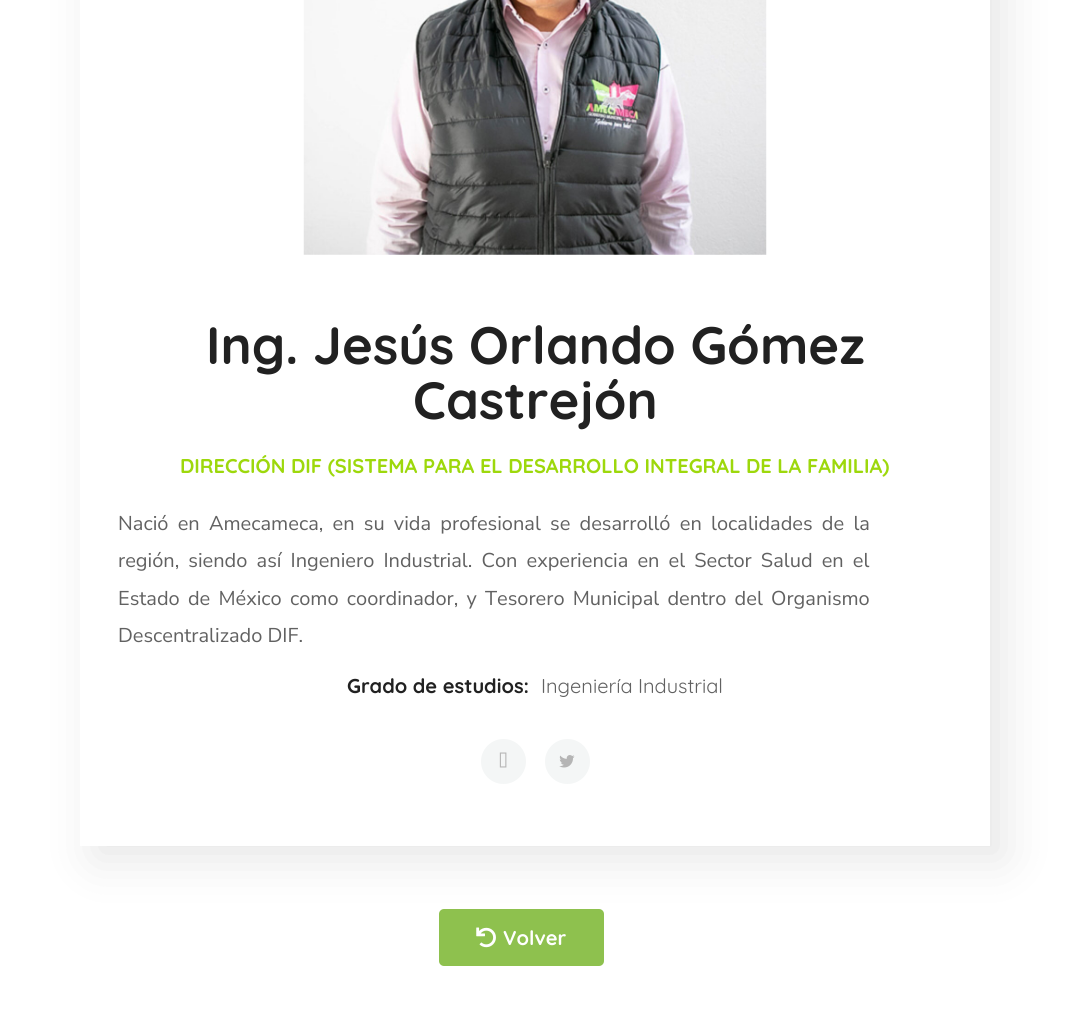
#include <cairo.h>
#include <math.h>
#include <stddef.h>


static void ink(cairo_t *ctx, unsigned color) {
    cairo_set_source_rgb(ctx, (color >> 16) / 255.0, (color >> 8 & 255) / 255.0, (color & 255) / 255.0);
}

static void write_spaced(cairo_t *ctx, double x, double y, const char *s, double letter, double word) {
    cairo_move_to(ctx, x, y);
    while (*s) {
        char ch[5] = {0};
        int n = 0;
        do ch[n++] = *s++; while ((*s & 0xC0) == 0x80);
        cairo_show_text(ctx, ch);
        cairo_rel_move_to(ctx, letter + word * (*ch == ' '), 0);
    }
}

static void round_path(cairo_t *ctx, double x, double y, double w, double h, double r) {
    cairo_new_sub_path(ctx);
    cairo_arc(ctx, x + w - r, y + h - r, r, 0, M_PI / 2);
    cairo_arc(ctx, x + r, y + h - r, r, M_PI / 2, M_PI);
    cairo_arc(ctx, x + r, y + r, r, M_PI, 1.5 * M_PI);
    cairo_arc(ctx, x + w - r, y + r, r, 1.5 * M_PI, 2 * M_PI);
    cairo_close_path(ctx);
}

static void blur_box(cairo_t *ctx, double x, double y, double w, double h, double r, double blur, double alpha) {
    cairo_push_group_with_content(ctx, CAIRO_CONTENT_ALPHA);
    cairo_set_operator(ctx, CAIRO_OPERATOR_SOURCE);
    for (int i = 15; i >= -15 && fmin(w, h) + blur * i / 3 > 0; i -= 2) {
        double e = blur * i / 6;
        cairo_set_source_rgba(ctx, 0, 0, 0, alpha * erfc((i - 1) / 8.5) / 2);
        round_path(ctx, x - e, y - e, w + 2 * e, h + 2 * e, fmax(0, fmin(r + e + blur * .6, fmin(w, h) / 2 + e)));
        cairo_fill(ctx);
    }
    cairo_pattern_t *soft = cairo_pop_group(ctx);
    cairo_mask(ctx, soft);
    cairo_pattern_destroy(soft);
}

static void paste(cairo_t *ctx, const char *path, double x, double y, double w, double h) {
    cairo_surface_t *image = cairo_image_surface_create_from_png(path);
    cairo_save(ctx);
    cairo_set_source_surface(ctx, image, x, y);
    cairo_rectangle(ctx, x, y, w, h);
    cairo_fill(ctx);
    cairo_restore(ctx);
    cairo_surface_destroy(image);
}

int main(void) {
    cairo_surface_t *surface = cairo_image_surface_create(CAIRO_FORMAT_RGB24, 1070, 1016);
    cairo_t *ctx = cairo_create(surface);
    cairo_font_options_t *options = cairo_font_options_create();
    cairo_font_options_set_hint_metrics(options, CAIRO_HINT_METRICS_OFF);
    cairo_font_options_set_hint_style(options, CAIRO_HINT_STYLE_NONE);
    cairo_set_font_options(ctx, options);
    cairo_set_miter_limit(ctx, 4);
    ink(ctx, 0xFFFFFF);
    cairo_paint(ctx);
    ink(ctx, 0x8EC14E);
    round_path(ctx, 439, 909, 165, 57, 5);
    cairo_fill(ctx);
    paste(ctx, "media/4.png", 476, 927, 20, 21);
    cairo_save(ctx);
    cairo_set_fill_rule(ctx, CAIRO_FILL_RULE_EVEN_ODD);
    cairo_new_path(ctx);
    cairo_move_to(ctx, 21, 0);
    cairo_line_to(ctx, 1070, 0);
    cairo_line_to(ctx, 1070, 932);
    cairo_line_to(ctx, 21, 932);
    cairo_close_path(ctx);
    cairo_move_to(ctx, 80, -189);
    cairo_line_to(ctx, 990, -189);
    cairo_line_to(ctx, 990, 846);
    cairo_line_to(ctx, 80, 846);
    cairo_close_path(ctx);
    cairo_clip(ctx);
    ink(ctx, 0x000000);
    blur_box(ctx, 94, -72, 910, 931, 0, 24, 0.1);
    cairo_restore(ctx);
    paste(ctx, "media/1.png", 303, 0, 464, 255);
    cairo_select_font_face(ctx, "Quicksand", CAIRO_FONT_SLANT_NORMAL, CAIRO_FONT_WEIGHT_BOLD);
    cairo_set_font_size(ctx, 52.5);
    ink(ctx, 0x212121);
    cairo_move_to(ctx, 206, 364);
    cairo_show_text(ctx, "Ing. Jesús Orlando Gómez");
    cairo_move_to(ctx, 413, 419);
    cairo_show_text(ctx, "Castrejón");
    cairo_set_font_size(ctx, 20);
    ink(ctx, 0x9DD80C);
    cairo_move_to(ctx, 180, 473);
    cairo_show_text(ctx, "DIRECCIÓN DIF (SISTEMA PARA EL DESARROLLO INTEGRAL DE LA FAMILIA)");
    cairo_select_font_face(ctx, "Nunito Sans", CAIRO_FONT_SLANT_NORMAL, CAIRO_FONT_WEIGHT_NORMAL);
    ink(ctx, 0x616161);
    write_spaced(ctx, 118, 530, "Nació en Amecameca, en su vida profesional se desarrolló en localidades de la", 0, 4.1);
    write_spaced(ctx, 118, 567, "región, siendo así Ingeniero Industrial. Con experiencia en el Sector Salud en el", 0, 4);
    write_spaced(ctx, 118, 605, "Estado de México como coordinador, y Tesorero Municipal dentro del Organismo", 0, 3.1);
    cairo_move_to(ctx, 118, 642);
    cairo_show_text(ctx, "Descentralizado DIF.");
    cairo_select_font_face(ctx, "Quicksand", CAIRO_FONT_SLANT_NORMAL, CAIRO_FONT_WEIGHT_BOLD);
    ink(ctx, 0x212121);
    cairo_move_to(ctx, 347, 693);
    cairo_show_text(ctx, "Grado de estudios:");
    cairo_select_font_face(ctx, "Quicksand", CAIRO_FONT_SLANT_NORMAL, CAIRO_FONT_WEIGHT_NORMAL);
    ink(ctx, 0x616161);
    cairo_move_to(ctx, 541, 693);
    cairo_show_text(ctx, "Ingeniería Industrial");
    ink(ctx, 0xF4F6F6);
    cairo_new_path(ctx);
    cairo_arc(ctx, 503.5, 761.5, 22.5, 0, 2 * M_PI);
    cairo_fill(ctx);
    paste(ctx, "media/2.png", 499, 752, 8, 16);
    cairo_arc(ctx, 567.5, 761.5, 22.5, 0, 2 * M_PI);
    cairo_fill(ctx);
    paste(ctx, "media/3.png", 559, 755, 16, 13);
    cairo_select_font_face(ctx, "Quicksand", CAIRO_FONT_SLANT_NORMAL, CAIRO_FONT_WEIGHT_BOLD);
    ink(ctx, 0xFFFFFF);
    cairo_move_to(ctx, 503, 945);
    cairo_show_text(ctx, "Volver");
    cairo_surface_write_to_png(surface, "image.png");
    cairo_font_options_destroy(options);
    cairo_destroy(ctx);
    cairo_surface_destroy(surface);
    return 0;
}
